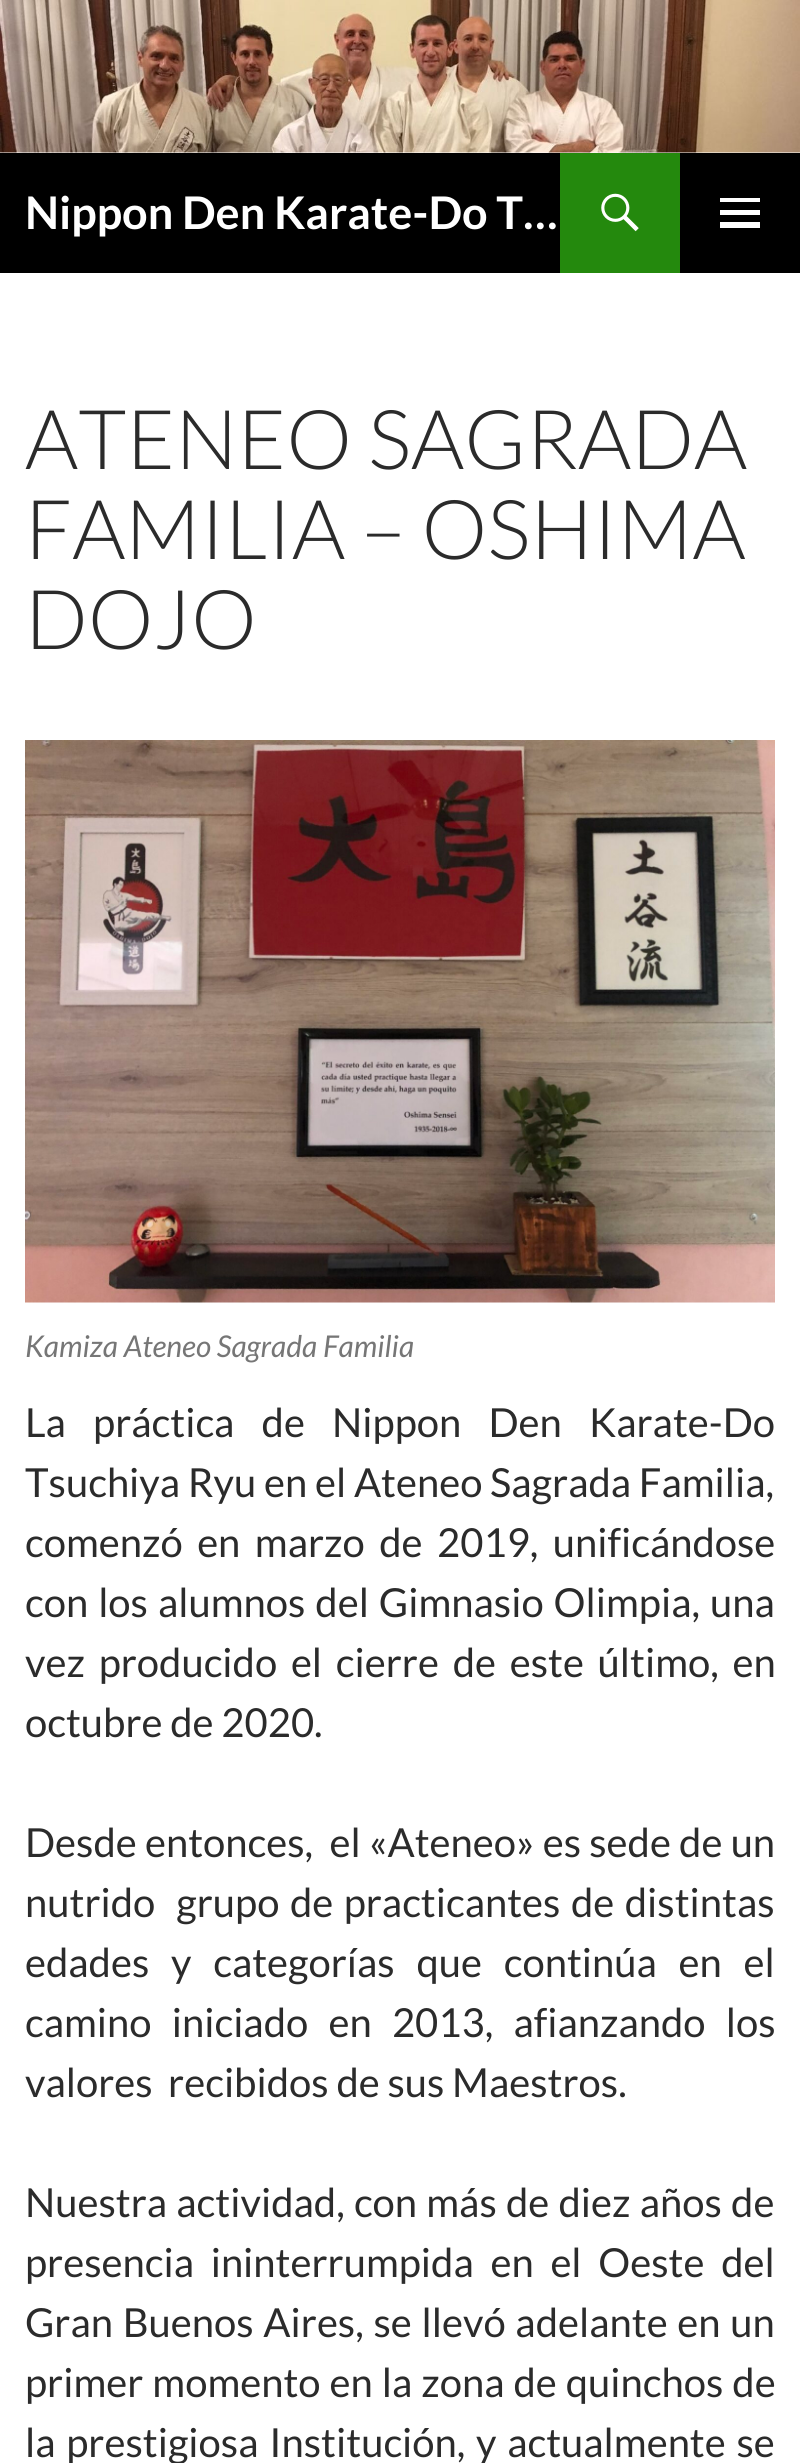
#include <cairo.h>
#include <math.h>
#include <stddef.h>

typedef struct { double x, y; const char *s; } line_t;

static void ink(cairo_t *ctx, unsigned color) {
    cairo_set_source_rgb(ctx, (color >> 16) / 255.0, (color >> 8 & 255) / 255.0, (color & 255) / 255.0);
}

static void write_spaced(cairo_t *ctx, double x, double y, const char *s, double letter, double word) {
    cairo_move_to(ctx, x, y);
    while (*s) {
        char ch[5] = {0};
        int n = 0;
        do ch[n++] = *s++; while ((*s & 0xC0) == 0x80);
        cairo_show_text(ctx, ch);
        cairo_rel_move_to(ctx, letter + word * (*ch == ' '), 0);
    }
}

static void paste(cairo_t *ctx, const char *path, double x, double y, double w, double h) {
    cairo_surface_t *image = cairo_image_surface_create_from_png(path);
    cairo_save(ctx);
    cairo_set_source_surface(ctx, image, x, y);
    cairo_rectangle(ctx, x, y, w, h);
    cairo_fill(ctx);
    cairo_restore(ctx);
    cairo_surface_destroy(image);
}

int main(void) {
    cairo_surface_t *surface = cairo_image_surface_create(CAIRO_FORMAT_RGB24, 800, 2463);
    cairo_t *ctx = cairo_create(surface);
    cairo_font_options_t *options = cairo_font_options_create();
    cairo_font_options_set_hint_metrics(options, CAIRO_HINT_METRICS_OFF);
    cairo_font_options_set_hint_style(options, CAIRO_HINT_STYLE_NONE);
    cairo_set_font_options(ctx, options);
    cairo_set_miter_limit(ctx, 4);
    ink(ctx, 0xFFFFFF);
    cairo_paint(ctx);
    paste(ctx, "media/1.png", 0, 0, 800, 153);
    ink(ctx, 0x000000);
    cairo_rectangle(ctx, 0, 153, 800, 120);
    cairo_fill(ctx);
    cairo_select_font_face(ctx, "Lato", CAIRO_FONT_SLANT_NORMAL, CAIRO_FONT_WEIGHT_BOLD);
    cairo_set_font_size(ctx, 45);
    ink(ctx, 0xFFFFFF);
    cairo_move_to(ctx, 25, 229);
    cairo_show_text(ctx, "Nippon Den Karate-Do T…");
    ink(ctx, 0x24890D);
    cairo_rectangle(ctx, 560, 153, 120, 120);
    cairo_fill(ctx);
    paste(ctx, "media/2.png", 601, 193, 38, 39);
    ink(ctx, 0xFFFFFF);
    cairo_new_path(ctx);
    cairo_move_to(ctx, 720, 228);
    cairo_line_to(ctx, 720, 222);
    cairo_line_to(ctx, 760, 222);
    cairo_line_to(ctx, 760, 228);
    cairo_close_path(ctx);
    cairo_move_to(ctx, 720, 215);
    cairo_line_to(ctx, 720, 210);
    cairo_line_to(ctx, 760, 210);
    cairo_line_to(ctx, 760, 215);
    cairo_close_path(ctx);
    cairo_move_to(ctx, 720, 202);
    cairo_line_to(ctx, 720, 198);
    cairo_line_to(ctx, 760, 198);
    cairo_line_to(ctx, 760, 202);
    cairo_close_path(ctx);
    cairo_fill(ctx);
    cairo_select_font_face(ctx, "Lato Light", CAIRO_FONT_SLANT_NORMAL, CAIRO_FONT_WEIGHT_NORMAL);
    cairo_set_font_size(ctx, 82.5);
    ink(ctx, 0x2B2B2B);
    {
        static const line_t items[] = {
            {25, 469, "ATENEO SAGRADA"},
            {25, 559, "FAMILIA – OSHIMA"},
            {25, 649, "DOJO"},
        };
        for (size_t i = 0; i < sizeof items / sizeof *items; i++) {
            cairo_move_to(ctx, items[i].x, items[i].y);
            cairo_show_text(ctx, items[i].s);
        }
    }
    paste(ctx, "media/3.png", 25, 740, 750, 563);
    cairo_select_font_face(ctx, "Lato", CAIRO_FONT_SLANT_ITALIC, CAIRO_FONT_WEIGHT_NORMAL);
    cairo_set_font_size(ctx, 30);
    ink(ctx, 0x767676);
    cairo_move_to(ctx, 25, 1357);
    cairo_show_text(ctx, "Kamiza Ateneo Sagrada Familia");
    cairo_select_font_face(ctx, "Lato", CAIRO_FONT_SLANT_NORMAL, CAIRO_FONT_WEIGHT_NORMAL);
    cairo_set_font_size(ctx, 40);
    ink(ctx, 0x2B2B2B);
    write_spaced(ctx, 25, 1437, "La práctica de Nippon Den Karate-Do", 0, 19.5);
    cairo_move_to(ctx, 25, 1497);
    cairo_show_text(ctx, "Tsuchiya Ryu en el Ateneo Sagrada Familia,");
    write_spaced(ctx, 25, 1557, "comenzó en marzo de 2019, unificándose", 0, 6.75);
    write_spaced(ctx, 25, 1617, "con los alumnos del Gimnasio Olimpia, una", 0, 2.25);
    write_spaced(ctx, 25, 1677, "vez producido el cierre de este último, en", 0, 6);
    cairo_move_to(ctx, 25, 1737);
    cairo_show_text(ctx, "octubre de 2020.");
    write_spaced(ctx, 25, 1857, "Desde entonces,  el «Ateneo» es sede de un", 0, 0.5);
    write_spaced(ctx, 25, 1917, "nutrido  grupo de practicantes de distintas", 0, 2.75);
    write_spaced(ctx, 25, 1977, "edades y categorías que continúa en el", 0, 14);
    write_spaced(ctx, 25, 2037, "camino iniciado en 2013, afianzando los", 0, 12.5);
    cairo_move_to(ctx, 25, 2097);
    cairo_show_text(ctx, "valores  recibidos de sus Maestros.");
    write_spaced(ctx, 25, 2217, "Nuestra actividad, con más de diez años de", 0, 1.5);
    write_spaced(ctx, 25, 2277, "presencia ininterrumpida en el Oeste del", 0, 9);
    write_spaced(ctx, 25, 2337, "Gran Buenos Aires, se llevó adelante en un", 0, 2);
    write_spaced(ctx, 25, 2397, "primer momento en la zona de quinchos de", 0, 1.25);
    write_spaced(ctx, 25, 2457, "la prestigiosa Institución, y actualmente se", 0, 3);
    cairo_surface_write_to_png(surface, "image.png");
    cairo_font_options_destroy(options);
    cairo_destroy(ctx);
    cairo_surface_destroy(surface);
    return 0;
}
